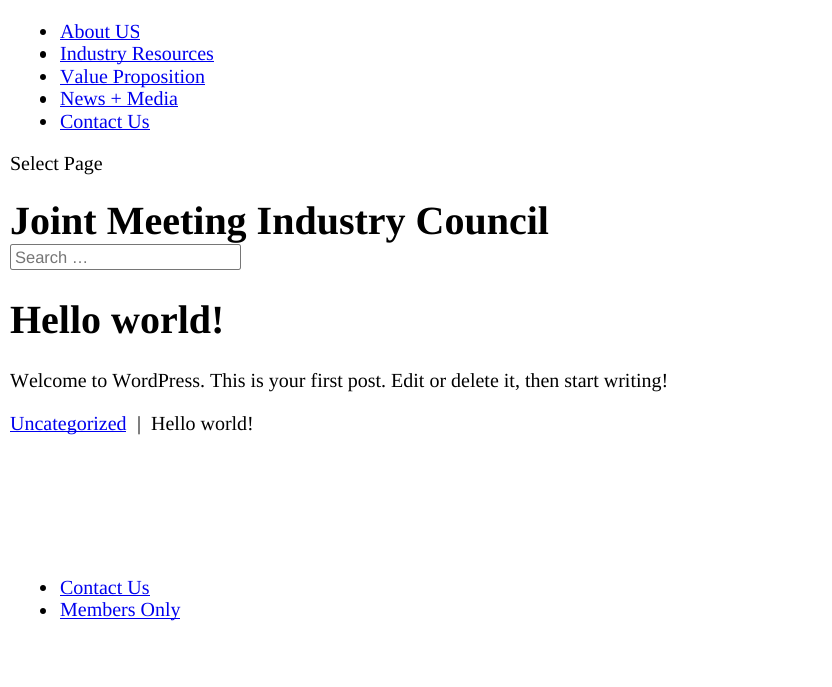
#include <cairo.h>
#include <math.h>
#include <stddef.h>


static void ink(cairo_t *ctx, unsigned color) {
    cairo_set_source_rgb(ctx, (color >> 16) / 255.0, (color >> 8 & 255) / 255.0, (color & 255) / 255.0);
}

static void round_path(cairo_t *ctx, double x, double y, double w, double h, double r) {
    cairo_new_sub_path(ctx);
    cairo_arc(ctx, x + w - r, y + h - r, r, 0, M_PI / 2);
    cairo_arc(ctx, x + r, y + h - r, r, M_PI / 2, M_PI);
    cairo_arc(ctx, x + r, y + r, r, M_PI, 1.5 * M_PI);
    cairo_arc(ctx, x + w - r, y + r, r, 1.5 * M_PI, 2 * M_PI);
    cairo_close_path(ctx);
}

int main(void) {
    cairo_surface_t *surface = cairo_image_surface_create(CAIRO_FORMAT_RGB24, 832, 687);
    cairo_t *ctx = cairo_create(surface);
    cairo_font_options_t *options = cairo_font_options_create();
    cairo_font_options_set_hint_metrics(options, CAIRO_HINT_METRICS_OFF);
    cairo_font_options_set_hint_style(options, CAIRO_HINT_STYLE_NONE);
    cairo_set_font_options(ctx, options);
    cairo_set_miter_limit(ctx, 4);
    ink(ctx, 0xFFFFFF);
    cairo_paint(ctx);
    ink(ctx, 0x000000);
    cairo_arc(ctx, 43, 32, 3, 0, 2 * M_PI);
    cairo_fill(ctx);
    cairo_select_font_face(ctx, "Liberation Serif", CAIRO_FONT_SLANT_NORMAL, CAIRO_FONT_WEIGHT_NORMAL);
    cairo_set_font_size(ctx, 20);
    ink(ctx, 0x0000EE);
    cairo_move_to(ctx, 60, 38);
    cairo_show_text(ctx, "About US");
    cairo_rectangle(ctx, 60, 39, 80, 1);
    cairo_fill(ctx);
    ink(ctx, 0x000000);
    round_path(ctx, 40, 51, 6, 7, 3);
    cairo_fill(ctx);
    ink(ctx, 0x0000EE);
    cairo_rectangle(ctx, 60, 61, 154, 1);
    cairo_fill(ctx);
    cairo_move_to(ctx, 60, 60);
    cairo_show_text(ctx, "Industry Resources");
    ink(ctx, 0x000000);
    cairo_new_path(ctx);
    cairo_arc(ctx, 43, 77, 3, 0, 2 * M_PI);
    cairo_fill(ctx);
    ink(ctx, 0x0000EE);
    cairo_rectangle(ctx, 60, 84, 145, 1);
    cairo_fill(ctx);
    cairo_move_to(ctx, 60, 83);
    cairo_show_text(ctx, "Value Proposition");
    ink(ctx, 0x000000);
    round_path(ctx, 40, 96, 6, 7, 3);
    cairo_fill(ctx);
    ink(ctx, 0x0000EE);
    cairo_move_to(ctx, 60, 105);
    cairo_show_text(ctx, "News + Media");
    cairo_rectangle(ctx, 60, 106, 118, 1);
    cairo_fill(ctx);
    ink(ctx, 0x000000);
    cairo_arc(ctx, 43, 122, 3, 0, 2 * M_PI);
    cairo_fill(ctx);
    ink(ctx, 0x0000EE);
    cairo_move_to(ctx, 60, 128);
    cairo_show_text(ctx, "Contact Us");
    cairo_rectangle(ctx, 60, 129, 90, 1);
    cairo_fill(ctx);
    ink(ctx, 0x000000);
    cairo_move_to(ctx, 10, 170);
    cairo_show_text(ctx, "Select Page");
    cairo_select_font_face(ctx, "Liberation Serif", CAIRO_FONT_SLANT_NORMAL, CAIRO_FONT_WEIGHT_BOLD);
    cairo_set_font_size(ctx, 40);
    cairo_move_to(ctx, 10, 234);
    cairo_show_text(ctx, "Joint Meeting Industry Council");
    round_path(ctx, 10.5, 244.5, 230, 25, 2);
    ink(ctx, 0x767676);
    cairo_set_line_width(ctx, 1);
    cairo_stroke(ctx);
    cairo_select_font_face(ctx, "Liberation Sans", CAIRO_FONT_SLANT_NORMAL, CAIRO_FONT_WEIGHT_NORMAL);
    cairo_set_font_size(ctx, 16.5);
    ink(ctx, 0x757575);
    cairo_move_to(ctx, 15, 263);
    cairo_show_text(ctx, "Search …");
    cairo_select_font_face(ctx, "Liberation Serif", CAIRO_FONT_SLANT_NORMAL, CAIRO_FONT_WEIGHT_BOLD);
    cairo_set_font_size(ctx, 40);
    ink(ctx, 0x000000);
    cairo_move_to(ctx, 10, 333);
    cairo_show_text(ctx, "Hello world!");
    cairo_select_font_face(ctx, "Liberation Serif", CAIRO_FONT_SLANT_NORMAL, CAIRO_FONT_WEIGHT_NORMAL);
    cairo_set_font_size(ctx, 20);
    cairo_move_to(ctx, 10, 387);
    cairo_show_text(ctx, "Welcome to WordPress. This is your first post. Edit or delete it, then start writing!");
    ink(ctx, 0x0000EE);
    cairo_rectangle(ctx, 10, 431, 116, 1);
    cairo_fill(ctx);
    cairo_move_to(ctx, 10, 430);
    cairo_show_text(ctx, "Uncategorized");
    ink(ctx, 0x000000);
    cairo_move_to(ctx, 137, 430);
    cairo_show_text(ctx, "|");
    cairo_move_to(ctx, 151, 430);
    cairo_show_text(ctx, "Hello world!");
    cairo_new_path(ctx);
    cairo_arc(ctx, 43, 588, 3, 0, 2 * M_PI);
    cairo_fill(ctx);
    ink(ctx, 0x0000EE);
    cairo_move_to(ctx, 60, 594);
    cairo_show_text(ctx, "Contact Us");
    cairo_rectangle(ctx, 60, 595, 90, 1);
    cairo_fill(ctx);
    ink(ctx, 0x000000);
    cairo_arc(ctx, 43, 611, 3, 0, 2 * M_PI);
    cairo_fill(ctx);
    ink(ctx, 0x0000EE);
    cairo_rectangle(ctx, 60, 618, 120, 1);
    cairo_fill(ctx);
    cairo_move_to(ctx, 60, 616);
    cairo_show_text(ctx, "Members Only");
    cairo_surface_write_to_png(surface, "image.png");
    cairo_font_options_destroy(options);
    cairo_destroy(ctx);
    cairo_surface_destroy(surface);
    return 0;
}
